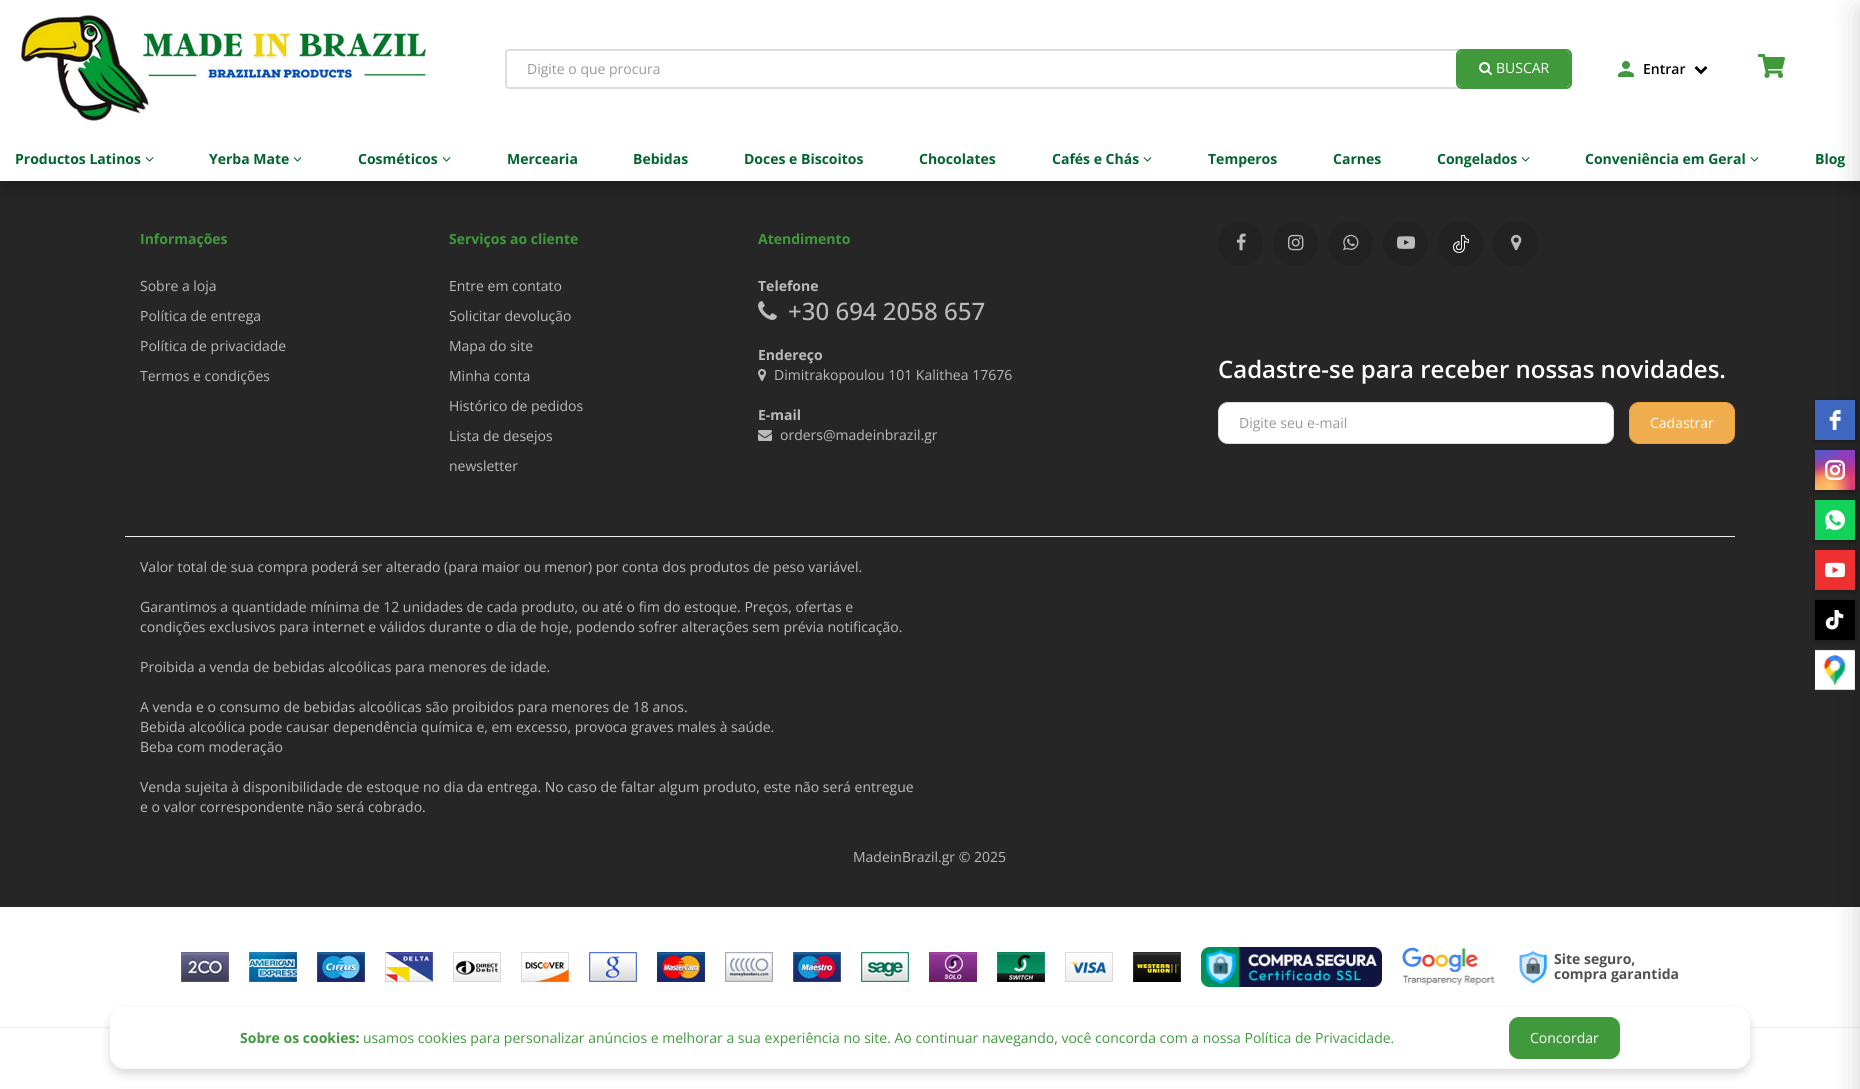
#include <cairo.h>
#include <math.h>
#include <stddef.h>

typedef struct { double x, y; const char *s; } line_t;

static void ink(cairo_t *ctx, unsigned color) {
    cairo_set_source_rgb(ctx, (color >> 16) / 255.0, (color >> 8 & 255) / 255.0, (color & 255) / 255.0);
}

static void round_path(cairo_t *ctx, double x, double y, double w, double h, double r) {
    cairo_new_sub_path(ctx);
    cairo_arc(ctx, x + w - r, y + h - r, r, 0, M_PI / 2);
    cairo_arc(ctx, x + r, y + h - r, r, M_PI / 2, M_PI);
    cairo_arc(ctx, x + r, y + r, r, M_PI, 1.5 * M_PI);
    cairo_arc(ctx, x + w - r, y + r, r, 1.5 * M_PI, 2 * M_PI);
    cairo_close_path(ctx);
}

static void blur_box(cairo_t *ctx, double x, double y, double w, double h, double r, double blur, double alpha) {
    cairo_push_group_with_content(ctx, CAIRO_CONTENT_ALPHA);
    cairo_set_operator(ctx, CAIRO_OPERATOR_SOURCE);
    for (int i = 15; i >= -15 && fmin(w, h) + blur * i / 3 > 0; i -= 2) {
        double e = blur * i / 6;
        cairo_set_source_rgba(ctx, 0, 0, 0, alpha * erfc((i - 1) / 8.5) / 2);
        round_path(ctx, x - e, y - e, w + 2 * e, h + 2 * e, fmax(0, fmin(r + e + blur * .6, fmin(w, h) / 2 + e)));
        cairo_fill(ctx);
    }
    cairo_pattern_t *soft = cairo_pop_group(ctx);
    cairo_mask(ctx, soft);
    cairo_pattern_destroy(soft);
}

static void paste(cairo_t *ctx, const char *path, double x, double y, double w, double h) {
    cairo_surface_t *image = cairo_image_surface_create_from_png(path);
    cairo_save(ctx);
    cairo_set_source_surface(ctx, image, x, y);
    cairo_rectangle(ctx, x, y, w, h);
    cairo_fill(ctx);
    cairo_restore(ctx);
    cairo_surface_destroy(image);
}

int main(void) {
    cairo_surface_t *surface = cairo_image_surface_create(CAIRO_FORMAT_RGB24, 1860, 1089);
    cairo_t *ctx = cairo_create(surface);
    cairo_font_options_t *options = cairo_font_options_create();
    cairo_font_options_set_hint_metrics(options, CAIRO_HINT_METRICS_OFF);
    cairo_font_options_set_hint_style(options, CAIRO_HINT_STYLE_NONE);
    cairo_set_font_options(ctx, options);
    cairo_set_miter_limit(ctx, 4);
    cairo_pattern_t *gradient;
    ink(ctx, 0xFFFFFF);
    cairo_paint(ctx);
    ink(ctx, 0x262626);
    cairo_rectangle(ctx, 0, 181, 1860, 726);
    cairo_fill(ctx);
    ink(ctx, 0x000000);
    blur_box(ctx, 0, 10, 1860, 181, 0, 7.5, 0.2);
    ink(ctx, 0xFFFFFF);
    cairo_rectangle(ctx, 0, 0, 1860, 181);
    cairo_fill(ctx);
    ink(ctx, 0xEEEEEE);
    cairo_rectangle(ctx, 0, 1027, 1860, 1);
    cairo_fill(ctx);
    ink(ctx, 0x000000);
    blur_box(ctx, 1860, 10, 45, 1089, 0, 15, 0.18);
    paste(ctx, "media/1.png", 21, 15, 407, 106);
    round_path(ctx, 506, 50, 1065, 38, 3);
    ink(ctx, 0xDDDDDD);
    cairo_stroke(ctx);
    cairo_select_font_face(ctx, "Open Sans", CAIRO_FONT_SLANT_NORMAL, CAIRO_FONT_WEIGHT_NORMAL);
    cairo_set_font_size(ctx, 14);
    ink(ctx, 0x999999);
    cairo_move_to(ctx, 527, 74);
    cairo_show_text(ctx, "Digite o que procura");
    ink(ctx, 0x409A3C);
    round_path(ctx, 1458.5, 51.5, 111, 35, 3.5);
    cairo_fill_preserve(ctx);
    cairo_set_line_width(ctx, 1);
    cairo_stroke(ctx);
    paste(ctx, "media/2.png", 1479, 62, 13, 13);
    round_path(ctx, 1457, 50, 114, 38, 5);
    cairo_set_line_width(ctx, 2);
    cairo_stroke(ctx);
    ink(ctx, 0xFFFFFF);
    cairo_move_to(ctx, 1496, 73);
    cairo_show_text(ctx, "BUSCAR");
    paste(ctx, "media/3.png", 1618, 61, 16, 16);
    cairo_select_font_face(ctx, "Open Sans SemiBold", CAIRO_FONT_SLANT_NORMAL, CAIRO_FONT_WEIGHT_NORMAL);
    ink(ctx, 0x000000);
    cairo_move_to(ctx, 1643, 74);
    cairo_show_text(ctx, "Entrar");
    paste(ctx, "media/4.png", 1694, 66, 14, 9);
    paste(ctx, "media/5.png", 1758, 54, 27, 24);
    cairo_select_font_face(ctx, "Open Sans", CAIRO_FONT_SLANT_NORMAL, CAIRO_FONT_WEIGHT_BOLD);
    ink(ctx, 0x00652E);
    cairo_move_to(ctx, 15, 164);
    cairo_show_text(ctx, "Productos Latinos");
    paste(ctx, "media/6.png", 145, 157, 9, 5);
    cairo_move_to(ctx, 209, 164);
    cairo_show_text(ctx, "Yerba Mate");
    paste(ctx, "media/6.png", 293, 157, 9, 5);
    cairo_move_to(ctx, 358, 164);
    cairo_show_text(ctx, "Cosméticos");
    paste(ctx, "media/6.png", 442, 157, 9, 5);
    {
        static const line_t items[] = {
            {507, 164, "Mercearia"},
            {633, 164, "Bebidas"},
            {744, 164, "Doces e Biscoitos"},
            {919, 164, "Chocolates"},
            {1052, 164, "Cafés e Chás"},
        };
        for (size_t i = 0; i < sizeof items / sizeof *items; i++) {
            cairo_move_to(ctx, items[i].x, items[i].y);
            cairo_show_text(ctx, items[i].s);
        }
    }
    paste(ctx, "media/6.png", 1143, 157, 9, 5);
    {
        static const line_t items[] = {
            {1208, 164, "Temperos"},
            {1333, 164, "Carnes"},
            {1437, 164, "Congelados"},
        };
        for (size_t i = 0; i < sizeof items / sizeof *items; i++) {
            cairo_move_to(ctx, items[i].x, items[i].y);
            cairo_show_text(ctx, items[i].s);
        }
    }
    paste(ctx, "media/6.png", 1521, 157, 9, 5);
    cairo_move_to(ctx, 1585, 164);
    cairo_show_text(ctx, "Conveniência em Geral");
    paste(ctx, "media/6.png", 1750, 157, 9, 5);
    cairo_move_to(ctx, 1815, 164);
    cairo_show_text(ctx, "Blog");
    ink(ctx, 0x409A3C);
    cairo_move_to(ctx, 140, 244);
    cairo_show_text(ctx, "Informações");
    cairo_select_font_face(ctx, "Open Sans", CAIRO_FONT_SLANT_NORMAL, CAIRO_FONT_WEIGHT_NORMAL);
    ink(ctx, 0xBBBBBB);
    {
        static const line_t items[] = {
            {140, 291, "Sobre a loja"},
            {140, 321, "Política de entrega"},
            {140, 351, "Política de privacidade"},
            {140, 381, "Termos e condições"},
        };
        for (size_t i = 0; i < sizeof items / sizeof *items; i++) {
            cairo_move_to(ctx, items[i].x, items[i].y);
            cairo_show_text(ctx, items[i].s);
        }
    }
    cairo_select_font_face(ctx, "Open Sans", CAIRO_FONT_SLANT_NORMAL, CAIRO_FONT_WEIGHT_BOLD);
    ink(ctx, 0x409A3C);
    cairo_move_to(ctx, 449, 244);
    cairo_show_text(ctx, "Serviços ao cliente");
    cairo_select_font_face(ctx, "Open Sans", CAIRO_FONT_SLANT_NORMAL, CAIRO_FONT_WEIGHT_NORMAL);
    ink(ctx, 0xBBBBBB);
    {
        static const line_t items[] = {
            {449, 291, "Entre em contato"},
            {449, 321, "Solicitar devolução"},
            {449, 351, "Mapa do site"},
            {449, 381, "Minha conta"},
            {449, 411, "Histórico de pedidos"},
            {449, 441, "Lista de desejos"},
            {449, 471, "newsletter"},
        };
        for (size_t i = 0; i < sizeof items / sizeof *items; i++) {
            cairo_move_to(ctx, items[i].x, items[i].y);
            cairo_show_text(ctx, items[i].s);
        }
    }
    cairo_select_font_face(ctx, "Open Sans", CAIRO_FONT_SLANT_NORMAL, CAIRO_FONT_WEIGHT_BOLD);
    ink(ctx, 0x409A3C);
    cairo_move_to(ctx, 758, 244);
    cairo_show_text(ctx, "Atendimento");
    ink(ctx, 0xBBBBBB);
    cairo_move_to(ctx, 758, 291);
    cairo_show_text(ctx, "Telefone");
    paste(ctx, "media/7.png", 758, 301, 19, 19);
    cairo_select_font_face(ctx, "Open Sans Medium", CAIRO_FONT_SLANT_NORMAL, CAIRO_FONT_WEIGHT_NORMAL);
    cairo_set_font_size(ctx, 24);
    cairo_move_to(ctx, 788, 320);
    cairo_show_text(ctx, "+30 694 2058 657");
    cairo_select_font_face(ctx, "Open Sans", CAIRO_FONT_SLANT_NORMAL, CAIRO_FONT_WEIGHT_BOLD);
    cairo_set_font_size(ctx, 14);
    cairo_move_to(ctx, 758, 360);
    cairo_show_text(ctx, "Endereço");
    paste(ctx, "media/8.png", 758, 369, 8, 12);
    cairo_select_font_face(ctx, "Open Sans", CAIRO_FONT_SLANT_NORMAL, CAIRO_FONT_WEIGHT_NORMAL);
    cairo_move_to(ctx, 774, 380);
    cairo_show_text(ctx, "Dimitrakopoulou 101 Kalithea 17676");
    cairo_select_font_face(ctx, "Open Sans", CAIRO_FONT_SLANT_NORMAL, CAIRO_FONT_WEIGHT_BOLD);
    cairo_move_to(ctx, 758, 420);
    cairo_show_text(ctx, "E-mail");
    paste(ctx, "media/9.png", 758, 430, 14, 11);
    cairo_select_font_face(ctx, "Open Sans", CAIRO_FONT_SLANT_NORMAL, CAIRO_FONT_WEIGHT_NORMAL);
    cairo_move_to(ctx, 780, 440);
    cairo_show_text(ctx, "orders@madeinbrazil.gr");
    ink(ctx, 0x222222);
    cairo_new_path(ctx);
    cairo_arc(ctx, 1240.5, 243.5, 22.5, 0, 2 * M_PI);
    cairo_fill(ctx);
    paste(ctx, "media/10.png", 1236, 233, 10, 18);
    cairo_arc(ctx, 1295.5, 243.5, 22.5, 0, 2 * M_PI);
    cairo_fill(ctx);
    paste(ctx, "media/11.png", 1288, 234, 16, 17);
    cairo_arc(ctx, 1350.5, 243.5, 22.5, 0, 2 * M_PI);
    cairo_fill(ctx);
    paste(ctx, "media/12.png", 1343, 234, 16, 17);
    cairo_arc(ctx, 1405.5, 243.5, 22.5, 0, 2 * M_PI);
    cairo_fill(ctx);
    paste(ctx, "media/13.png", 1397, 236, 18, 13);
    cairo_arc(ctx, 1460.5, 243.5, 22.5, 0, 2 * M_PI);
    cairo_fill(ctx);
    paste(ctx, "media/14.png", 1453, 235, 16, 18);
    cairo_arc(ctx, 1515.5, 243.5, 22.5, 0, 2 * M_PI);
    cairo_fill(ctx);
    paste(ctx, "media/15.png", 1511, 234, 11, 17);
    cairo_select_font_face(ctx, "Open Sans SemiBold", CAIRO_FONT_SLANT_NORMAL, CAIRO_FONT_WEIGHT_NORMAL);
    cairo_set_font_size(ctx, 24);
    ink(ctx, 0xFFFFFF);
    cairo_move_to(ctx, 1218, 378);
    cairo_show_text(ctx, "Cadastre-se para receber nossas novidades.");
    round_path(ctx, 1218.5, 402.5, 395, 41, 9.5);
    cairo_fill_preserve(ctx);
    ink(ctx, 0xDDDDDD);
    cairo_set_line_width(ctx, 1);
    cairo_stroke(ctx);
    cairo_select_font_face(ctx, "Open Sans", CAIRO_FONT_SLANT_NORMAL, CAIRO_FONT_WEIGHT_NORMAL);
    cairo_set_font_size(ctx, 14);
    ink(ctx, 0x999999);
    cairo_move_to(ctx, 1239, 428);
    cairo_show_text(ctx, "Digite seu e-mail");
    ink(ctx, 0xF0AD4E);
    round_path(ctx, 1629.5, 402.5, 105, 41, 9.5);
    cairo_fill_preserve(ctx);
    ink(ctx, 0xEEA236);
    cairo_stroke(ctx);
    ink(ctx, 0xFFFFFF);
    cairo_move_to(ctx, 1650, 428);
    cairo_show_text(ctx, "Cadastrar");
    ink(ctx, 0xEEEEEE);
    cairo_rectangle(ctx, 125, 536, 1610, 1);
    cairo_fill(ctx);
    ink(ctx, 0xBBBBBB);
    {
        static const line_t items[] = {
            {140, 572, "Valor total de sua compra poderá ser alterado (para maior ou menor) por conta dos produtos de peso variável."},
            {140, 612, "Garantimos a quantidade mínima de 12 unidades de cada produto, ou até o fim do estoque. Preços, ofertas e"},
            {140, 632, "condições exclusivos para internet e válidos durante o dia de hoje, podendo sofrer alterações sem prévia notificação."},
            {140, 672, "Proibida a venda de bebidas alcoólicas para menores de idade."},
            {140, 712, "A venda e o consumo de bebidas alcoólicas são proibidos para menores de 18 anos."},
            {140, 732, "Bebida alcoólica pode causar dependência química e, em excesso, provoca graves males à saúde."},
            {140, 752, "Beba com moderação"},
            {140, 792, "Venda sujeita à disponibilidade de estoque no dia da entrega. No caso de faltar algum produto, este não será entregue"},
            {140, 812, "e o valor correspondente não será cobrado."},
            {853, 862, "MadeinBrazil.gr © 2025"},
        };
        for (size_t i = 0; i < sizeof items / sizeof *items; i++) {
            cairo_move_to(ctx, items[i].x, items[i].y);
            cairo_show_text(ctx, items[i].s);
        }
    }
    paste(ctx, "media/16.png", 181, 952, 48, 30);
    paste(ctx, "media/17.png", 249, 952, 48, 30);
    paste(ctx, "media/18.png", 317, 952, 48, 30);
    paste(ctx, "media/19.png", 385, 952, 48, 30);
    paste(ctx, "media/20.png", 453, 952, 48, 30);
    paste(ctx, "media/21.png", 521, 952, 48, 30);
    paste(ctx, "media/22.png", 589, 952, 48, 30);
    paste(ctx, "media/23.png", 657, 952, 48, 30);
    paste(ctx, "media/24.png", 725, 952, 48, 30);
    paste(ctx, "media/25.png", 793, 952, 48, 30);
    paste(ctx, "media/26.png", 861, 952, 48, 30);
    paste(ctx, "media/27.png", 929, 952, 48, 30);
    paste(ctx, "media/28.png", 997, 952, 48, 30);
    paste(ctx, "media/29.png", 1065, 952, 48, 30);
    paste(ctx, "media/30.png", 1133, 952, 48, 30);
    paste(ctx, "media/31.png", 1201, 947, 181, 40);
    paste(ctx, "media/32.png", 1402, 947, 93, 38);
    paste(ctx, "media/33.png", 1519, 951, 28, 32);
    cairo_select_font_face(ctx, "Open Sans", CAIRO_FONT_SLANT_NORMAL, CAIRO_FONT_WEIGHT_BOLD);
    ink(ctx, 0x515151);
    cairo_move_to(ctx, 1554, 964);
    cairo_show_text(ctx, "Site seguro,");
    cairo_move_to(ctx, 1554, 979);
    cairo_show_text(ctx, "compra garantida");
    ink(ctx, 0x000000);
    blur_box(ctx, 1815, 402, 40, 40, 0, 3, 0.28);
    ink(ctx, 0x3E68C0);
    cairo_rectangle(ctx, 1815, 400, 40, 40);
    cairo_fill(ctx);
    paste(ctx, "media/34.png", 1829, 410, 12, 20);
    ink(ctx, 0x000000);
    blur_box(ctx, 1815, 452, 40, 40, 0, 3, 0.28);
    gradient = cairo_pattern_create_linear(1835, 450, 1835, 490);
    cairo_pattern_add_color_stop_rgba(gradient, 0, 0.396, 0.349, 0.792, 1);
    cairo_pattern_add_color_stop_rgba(gradient, 0.3, 0.737, 0.192, 0.561, 1);
    cairo_pattern_add_color_stop_rgba(gradient, 0.5, 0.89, 0.247, 0.373, 1);
    cairo_pattern_add_color_stop_rgba(gradient, 0.7, 0.969, 0.463, 0.22, 1);
    cairo_pattern_add_color_stop_rgba(gradient, 1, 0.996, 0.776, 0.427, 1);
    cairo_set_source(ctx, gradient);
    cairo_pattern_destroy(gradient);
    cairo_rectangle(ctx, 1815, 450, 40, 40);
    cairo_fill(ctx);
    gradient = cairo_pattern_create_radial(1855, 490, 0, 1855, 490, 57);
    cairo_pattern_add_color_stop_rgba(gradient, 0, 0.851, 0.192, 0.478, 1);
    cairo_pattern_add_color_stop_rgba(gradient, 1, 0.851, 0.192, 0.478, 0);
    cairo_set_source(ctx, gradient);
    cairo_pattern_destroy(gradient);
    cairo_rectangle(ctx, 1815, 450, 40, 40);
    cairo_fill(ctx);
    gradient = cairo_pattern_create_radial(0, 0, 0, 0, 0, 1);
    cairo_pattern_set_matrix(gradient, &(cairo_matrix_t){1.0 / 34, 0, 0, 1.0 / 68, -1.0 * 1839 / 34, -1.0 * 442 / 68});
    cairo_pattern_add_color_stop_rgba(gradient, 0, 0.537, 0.239, 0.761, 1);
    cairo_pattern_add_color_stop_rgba(gradient, 0.5, 0.537, 0.239, 0.761, 0);
    cairo_set_source(ctx, gradient);
    cairo_pattern_destroy(gradient);
    cairo_rectangle(ctx, 1825, 450, 29, 25);
    cairo_fill(ctx);
    gradient = cairo_pattern_create_radial(1855, 450, 0, 1855, 450, 57);
    cairo_pattern_add_color_stop_rgba(gradient, 0, 0.537, 0.239, 0.761, 1);
    cairo_pattern_add_color_stop_rgba(gradient, 0.5, 0.537, 0.239, 0.761, 0);
    cairo_set_source(ctx, gradient);
    cairo_pattern_destroy(gradient);
    cairo_rectangle(ctx, 1830, 450, 25, 28);
    cairo_fill(ctx);
    gradient = cairo_pattern_create_radial(0, 0, 0, 0, 0, 1);
    cairo_pattern_set_matrix(gradient, &(cairo_matrix_t){1.0 / 45, 0, 0, 1.0 / 85, -1.0 * 1823 / 45, -1.0 * 430 / 85});
    cairo_pattern_add_color_stop_rgba(gradient, 0, 0.322, 0.345, 0.812, 1);
    cairo_pattern_add_color_stop_rgba(gradient, 0.5, 0.322, 0.345, 0.812, 0);
    cairo_set_source(ctx, gradient);
    cairo_pattern_destroy(gradient);
    cairo_rectangle(ctx, 1815, 450, 26, 22);
    cairo_fill(ctx);
    gradient = cairo_pattern_create_radial(0, 0, 0, 0, 0, 1);
    cairo_pattern_set_matrix(gradient, &(cairo_matrix_t){1.0 / 57, 0, 0, 1.0 / 71, -1.0 * 1815 / 57, -1.0 * 440 / 71});
    cairo_pattern_add_color_stop_rgba(gradient, 0, 0.322, 0.345, 0.812, 1);
    cairo_pattern_add_color_stop_rgba(gradient, 0.5, 0.322, 0.345, 0.812, 0);
    cairo_set_source(ctx, gradient);
    cairo_pattern_destroy(gradient);
    cairo_rectangle(ctx, 1815, 450, 26, 25);
    cairo_fill(ctx);
    gradient = cairo_pattern_create_radial(1815, 506, 0, 1815, 506, 69);
    cairo_pattern_add_color_stop_rgba(gradient, 0, 0.996, 0.773, 0.392, 1);
    cairo_pattern_add_color_stop_rgba(gradient, 0.5, 0.996, 0.773, 0.392, 0);
    cairo_set_source(ctx, gradient);
    cairo_pattern_destroy(gradient);
    cairo_rectangle(ctx, 1815, 472, 29, 18);
    cairo_fill(ctx);
    gradient = cairo_pattern_create_radial(1829, 486, 0, 1829, 486, 44);
    cairo_pattern_add_color_stop_rgba(gradient, 0, 0.996, 0.773, 0.392, 1);
    cairo_pattern_add_color_stop_rgba(gradient, 0.5, 0.996, 0.773, 0.392, 0);
    cairo_set_source(ctx, gradient);
    cairo_pattern_destroy(gradient);
    cairo_rectangle(ctx, 1815, 464, 36, 26);
    cairo_fill(ctx);
    paste(ctx, "media/35.png", 1825, 460, 20, 20);
    ink(ctx, 0x000000);
    blur_box(ctx, 1815, 502, 40, 40, 0, 3, 0.28);
    ink(ctx, 0x13D25A);
    cairo_rectangle(ctx, 1815, 500, 40, 40);
    cairo_fill(ctx);
    paste(ctx, "media/36.png", 1825, 510, 20, 20);
    ink(ctx, 0x000000);
    blur_box(ctx, 1815, 552, 40, 40, 0, 3, 0.28);
    ink(ctx, 0xEE3130);
    cairo_rectangle(ctx, 1815, 550, 40, 40);
    cairo_fill(ctx);
    paste(ctx, "media/37.png", 1825, 562, 20, 16);
    ink(ctx, 0x000000);
    blur_box(ctx, 1815, 602, 40, 40, 0, 3, 0.28);
    ink(ctx, 0x000000);
    cairo_rectangle(ctx, 1815, 600, 40, 40);
    cairo_fill(ctx);
    paste(ctx, "media/38.png", 1825, 610, 19, 20);
    paste(ctx, "media/39.png", 1815, 649, 40, 41);
    ink(ctx, 0x000000);
    blur_box(ctx, 110, 1012, 1640, 62, 15, 5, 0.15);
    ink(ctx, 0xFFFFFF);
    round_path(ctx, 110, 1007, 1640, 62, 15);
    cairo_fill(ctx);
    ink(ctx, 0x409A3C);
    cairo_move_to(ctx, 240, 1043);
    cairo_show_text(ctx, "Sobre os cookies:");
    cairo_select_font_face(ctx, "Open Sans", CAIRO_FONT_SLANT_NORMAL, CAIRO_FONT_WEIGHT_NORMAL);
    cairo_move_to(ctx, 363, 1043);
    cairo_show_text(ctx, "usamos cookies para personalizar anúncios e melhorar a sua experiência no site. Ao continuar navegando, você concorda com a nossa Política de Privacidade.");
    round_path(ctx, 1509.5, 1017.5, 110, 41, 9.5);
    cairo_fill_preserve(ctx);
    cairo_stroke(ctx);
    ink(ctx, 0xFFFFFF);
    cairo_move_to(ctx, 1530, 1043);
    cairo_show_text(ctx, "Concordar");
    cairo_surface_write_to_png(surface, "image.png");
    cairo_font_options_destroy(options);
    cairo_destroy(ctx);
    cairo_surface_destroy(surface);
    return 0;
}
